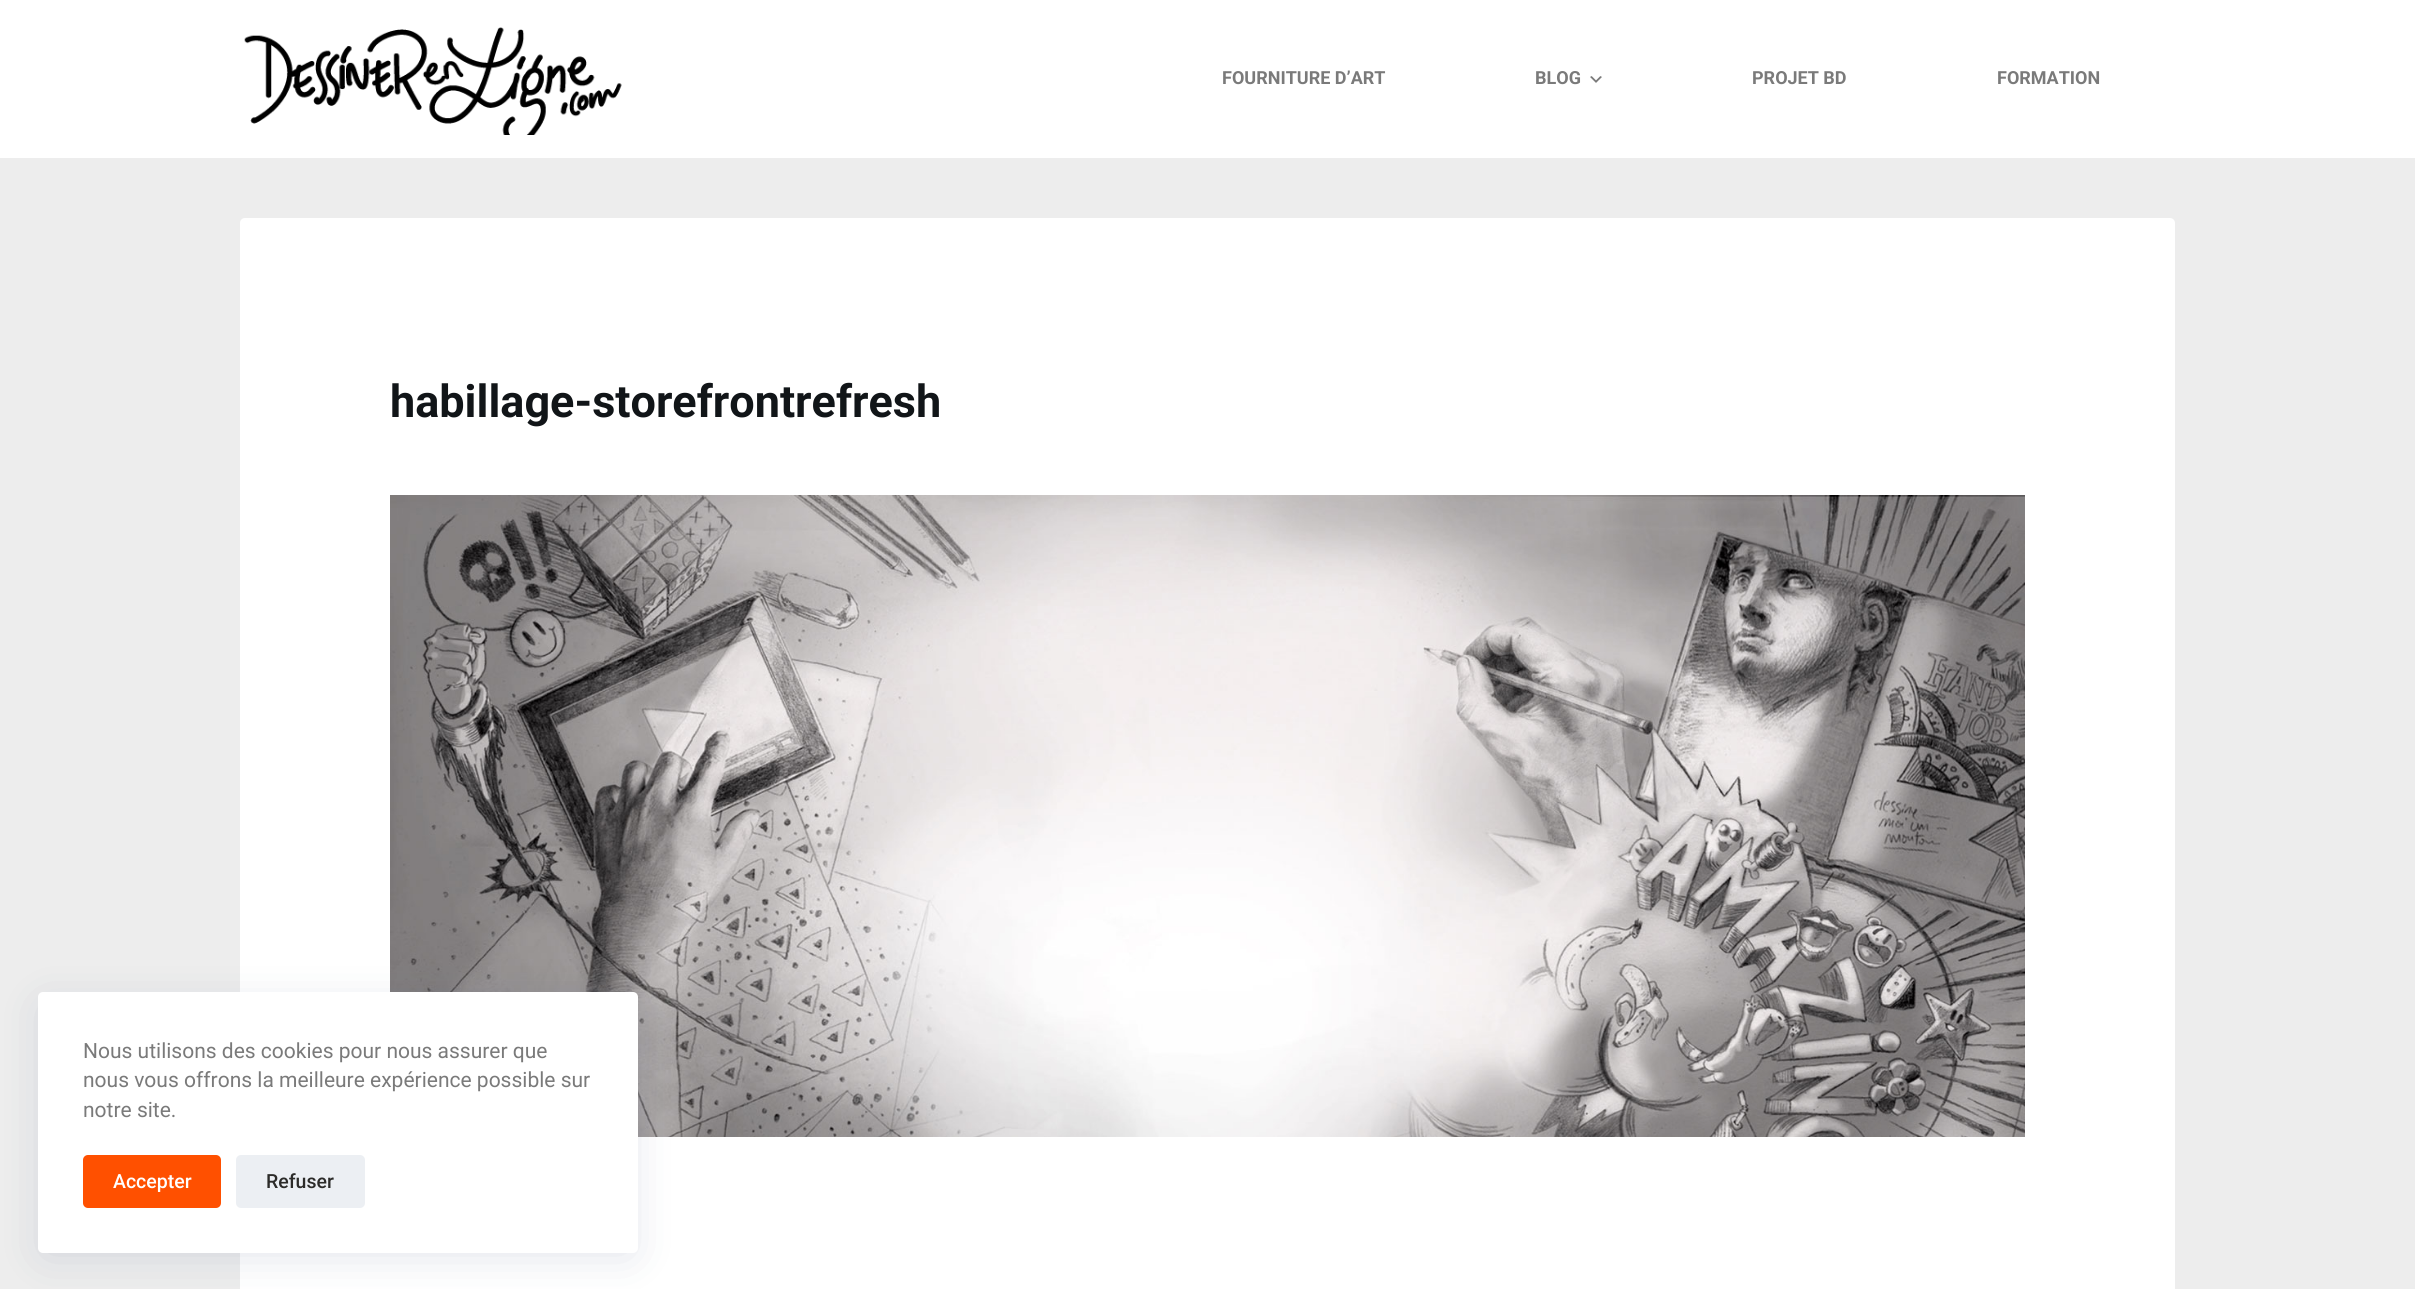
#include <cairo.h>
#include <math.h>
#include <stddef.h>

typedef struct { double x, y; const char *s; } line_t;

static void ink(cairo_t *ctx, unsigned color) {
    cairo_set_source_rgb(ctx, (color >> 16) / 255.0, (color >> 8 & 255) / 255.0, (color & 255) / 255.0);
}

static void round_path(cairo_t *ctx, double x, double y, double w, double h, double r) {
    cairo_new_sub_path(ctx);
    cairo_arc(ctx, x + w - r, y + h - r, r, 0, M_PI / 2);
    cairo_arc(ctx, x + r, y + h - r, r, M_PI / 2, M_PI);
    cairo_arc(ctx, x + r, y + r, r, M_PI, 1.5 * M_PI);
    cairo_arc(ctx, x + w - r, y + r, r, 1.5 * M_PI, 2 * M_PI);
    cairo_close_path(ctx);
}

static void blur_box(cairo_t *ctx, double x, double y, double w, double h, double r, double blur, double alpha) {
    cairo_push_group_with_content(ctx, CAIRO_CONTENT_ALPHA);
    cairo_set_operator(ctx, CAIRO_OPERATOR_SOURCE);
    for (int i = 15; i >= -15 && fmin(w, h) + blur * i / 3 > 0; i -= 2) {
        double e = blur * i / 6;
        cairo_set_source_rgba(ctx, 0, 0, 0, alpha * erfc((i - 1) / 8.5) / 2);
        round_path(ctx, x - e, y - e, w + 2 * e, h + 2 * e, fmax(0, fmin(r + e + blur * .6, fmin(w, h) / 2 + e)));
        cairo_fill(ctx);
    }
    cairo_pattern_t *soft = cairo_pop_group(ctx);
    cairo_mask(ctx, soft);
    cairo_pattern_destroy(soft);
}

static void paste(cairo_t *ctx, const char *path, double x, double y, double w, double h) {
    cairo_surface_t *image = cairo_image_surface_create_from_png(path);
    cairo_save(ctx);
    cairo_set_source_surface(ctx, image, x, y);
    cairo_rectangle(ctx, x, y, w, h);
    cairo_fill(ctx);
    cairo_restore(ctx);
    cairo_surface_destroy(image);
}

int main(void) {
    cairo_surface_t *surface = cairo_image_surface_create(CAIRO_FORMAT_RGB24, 2415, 1289);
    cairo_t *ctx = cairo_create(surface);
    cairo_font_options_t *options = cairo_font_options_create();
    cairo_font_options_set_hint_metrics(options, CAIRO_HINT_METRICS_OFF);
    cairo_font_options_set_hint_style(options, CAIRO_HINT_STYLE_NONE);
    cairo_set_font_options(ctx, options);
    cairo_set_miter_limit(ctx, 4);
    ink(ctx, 0xEDEDED);
    cairo_paint(ctx);
    ink(ctx, 0xFFFFFF);
    cairo_rectangle(ctx, 0, 0, 2415, 158);
    cairo_fill(ctx);
    paste(ctx, "media/1.png", 244, 27, 378, 108);
    cairo_select_font_face(ctx, "Roboto", CAIRO_FONT_SLANT_NORMAL, CAIRO_FONT_WEIGHT_BOLD);
    cairo_set_font_size(ctx, 18);
    ink(ctx, 0x7A7A7A);
    cairo_move_to(ctx, 1222, 84);
    cairo_show_text(ctx, "FOURNITURE D’ART");
    cairo_move_to(ctx, 1535, 84);
    cairo_show_text(ctx, "BLOG");
    paste(ctx, "media/2.png", 1590, 76, 12, 7);
    cairo_move_to(ctx, 1752, 84);
    cairo_show_text(ctx, "PROJET BD");
    cairo_move_to(ctx, 1997, 84);
    cairo_show_text(ctx, "FORMATION");
    ink(ctx, 0xFFFFFF);
    round_path(ctx, 240, 218, 1935, 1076, 5);
    cairo_fill(ctx);
    cairo_set_font_size(ctx, 45);
    ink(ctx, 0x111518);
    cairo_move_to(ctx, 390, 417);
    cairo_show_text(ctx, "habillage-storefrontrefresh");
    paste(ctx, "media/3.png", 390, 495, 1635, 642);
    ink(ctx, 0x223865);
    blur_box(ctx, 45, 1007, 585, 246, 0, 22.5, 0.15);
    ink(ctx, 0xFFFFFF);
    round_path(ctx, 38, 992, 600, 261, 5);
    cairo_fill(ctx);
    cairo_select_font_face(ctx, "Roboto", CAIRO_FONT_SLANT_NORMAL, CAIRO_FONT_WEIGHT_NORMAL);
    cairo_set_font_size(ctx, 21);
    ink(ctx, 0x7A7A7A);
    {
        static const line_t items[] = {
            {83, 1058, "Nous utilisons des cookies pour nous assurer que"},
            {83, 1087, "nous vous offrons la meilleure expérience possible sur"},
            {83, 1117, "notre site."},
        };
        for (size_t i = 0; i < sizeof items / sizeof *items; i++) {
            cairo_move_to(ctx, items[i].x, items[i].y);
            cairo_show_text(ctx, items[i].s);
        }
    }
    ink(ctx, 0xFF5000);
    round_path(ctx, 83, 1155, 138, 53, 5);
    cairo_fill(ctx);
    cairo_select_font_face(ctx, "Roboto Medium", CAIRO_FONT_SLANT_NORMAL, CAIRO_FONT_WEIGHT_NORMAL);
    cairo_set_font_size(ctx, 19.5);
    ink(ctx, 0xFFFFFF);
    cairo_move_to(ctx, 113, 1188);
    cairo_show_text(ctx, "Accepter");
    ink(ctx, 0xECEFF3);
    round_path(ctx, 236, 1155, 129, 53, 5);
    cairo_fill(ctx);
    ink(ctx, 0x2C2B29);
    cairo_move_to(ctx, 266, 1188);
    cairo_show_text(ctx, "Refuser");
    cairo_surface_write_to_png(surface, "image.png");
    cairo_font_options_destroy(options);
    cairo_destroy(ctx);
    cairo_surface_destroy(surface);
    return 0;
}
